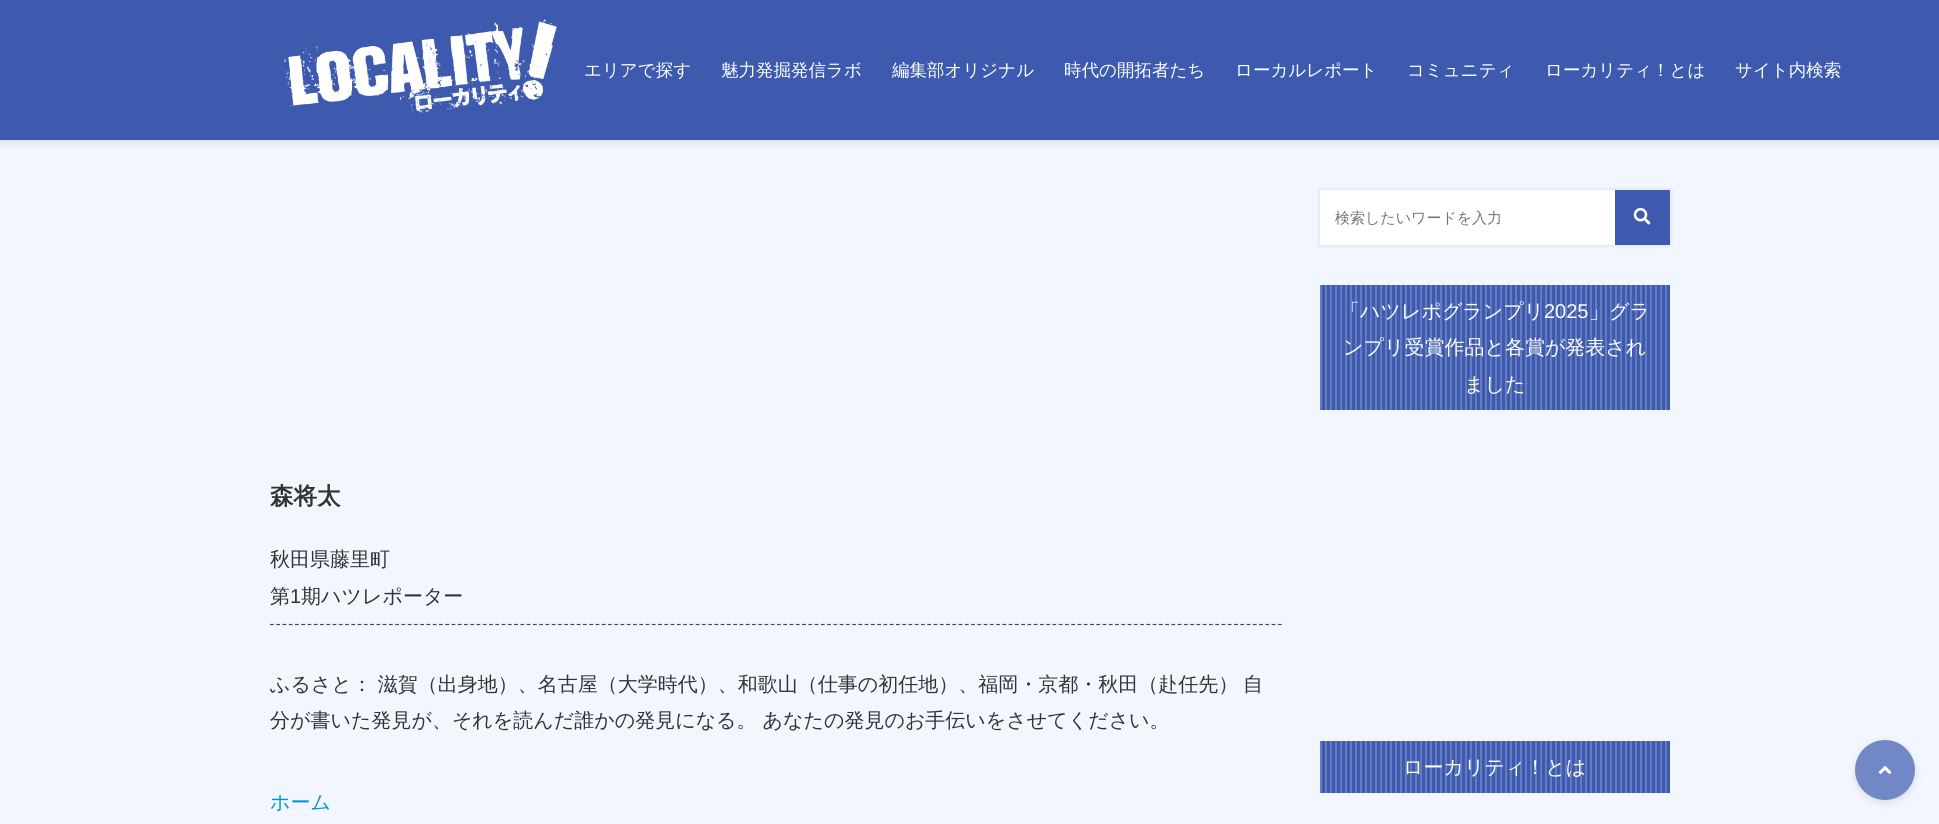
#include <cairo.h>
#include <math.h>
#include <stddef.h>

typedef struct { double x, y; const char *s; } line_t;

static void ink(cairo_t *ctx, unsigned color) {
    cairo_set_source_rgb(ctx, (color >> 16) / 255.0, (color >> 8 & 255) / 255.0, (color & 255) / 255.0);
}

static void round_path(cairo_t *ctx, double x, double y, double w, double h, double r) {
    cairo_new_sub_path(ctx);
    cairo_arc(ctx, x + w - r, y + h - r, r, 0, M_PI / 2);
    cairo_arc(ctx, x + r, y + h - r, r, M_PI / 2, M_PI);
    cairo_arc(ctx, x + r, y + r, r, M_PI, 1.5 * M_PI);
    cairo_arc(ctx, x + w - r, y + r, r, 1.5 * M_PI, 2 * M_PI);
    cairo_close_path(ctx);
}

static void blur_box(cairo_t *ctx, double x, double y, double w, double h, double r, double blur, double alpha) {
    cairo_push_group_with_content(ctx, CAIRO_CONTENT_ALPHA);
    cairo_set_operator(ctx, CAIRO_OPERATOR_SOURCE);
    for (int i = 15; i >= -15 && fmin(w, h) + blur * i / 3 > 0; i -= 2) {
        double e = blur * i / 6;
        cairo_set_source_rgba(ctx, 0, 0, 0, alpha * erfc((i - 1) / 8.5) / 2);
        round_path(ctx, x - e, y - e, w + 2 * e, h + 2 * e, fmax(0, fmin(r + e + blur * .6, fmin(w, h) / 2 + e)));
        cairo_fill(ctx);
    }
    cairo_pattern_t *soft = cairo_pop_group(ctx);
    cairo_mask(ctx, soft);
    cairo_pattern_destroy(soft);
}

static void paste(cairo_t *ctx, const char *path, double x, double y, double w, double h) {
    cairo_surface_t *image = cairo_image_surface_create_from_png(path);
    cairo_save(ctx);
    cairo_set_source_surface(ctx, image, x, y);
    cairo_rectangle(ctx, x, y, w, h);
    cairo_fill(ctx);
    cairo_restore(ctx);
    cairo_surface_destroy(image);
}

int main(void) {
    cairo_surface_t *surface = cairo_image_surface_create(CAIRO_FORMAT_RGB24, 1939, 824);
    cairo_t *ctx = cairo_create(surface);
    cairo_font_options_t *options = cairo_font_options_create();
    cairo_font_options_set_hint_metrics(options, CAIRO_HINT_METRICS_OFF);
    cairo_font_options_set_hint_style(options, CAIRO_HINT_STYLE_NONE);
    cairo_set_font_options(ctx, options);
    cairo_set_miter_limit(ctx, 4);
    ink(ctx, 0xF2F6FF);
    cairo_paint(ctx);
    ink(ctx, 0x000000);
    blur_box(ctx, 0, 3, 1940, 140, 0, 4, 0.1);
    ink(ctx, 0x3D5AAF);
    cairo_rectangle(ctx, 0, 0, 1939, 140);
    cairo_fill(ctx);
    paste(ctx, "media/1.png", 283, 19, 274, 95);
    cairo_select_font_face(ctx, "WenQuanYi Zen Hei Medium", CAIRO_FONT_SLANT_NORMAL, CAIRO_FONT_WEIGHT_NORMAL);
    cairo_set_font_size(ctx, 17.5);
    ink(ctx, 0xFFFFFF);
    {
        static const line_t items[] = {
            {584, 76, "エリアで探す"},
            {721, 76, "魅力発掘発信ラボ"},
            {892, 76, "編集部オリジナル"},
            {1064, 76, "時代の開拓者たち"},
            {1235, 76, "ローカルレポート"},
            {1407, 76, "コミュニティ"},
            {1545, 76, "ローカリティ！とは"},
            {1735, 76, "サイト内検索"},
        };
        for (size_t i = 0; i < sizeof items / sizeof *items; i++) {
            cairo_move_to(ctx, items[i].x, items[i].y);
            cairo_show_text(ctx, items[i].s);
        }
    }
    cairo_select_font_face(ctx, "WenQuanYi Zen Hei", CAIRO_FONT_SLANT_NORMAL, CAIRO_FONT_WEIGHT_BOLD);
    cairo_set_font_size(ctx, 23.5);
    ink(ctx, 0x333333);
    cairo_move_to(ctx, 270, 504);
    cairo_show_text(ctx, "森将太");
    cairo_select_font_face(ctx, "WenQuanYi Zen Hei Medium", CAIRO_FONT_SLANT_NORMAL, CAIRO_FONT_WEIGHT_NORMAL);
    cairo_set_font_size(ctx, 20);
    cairo_move_to(ctx, 270, 566);
    cairo_show_text(ctx, "秋田県藤里町");
    cairo_new_path(ctx);
    cairo_move_to(ctx, 270, 624.5);
    cairo_line_to(ctx, 1282.5, 624.5);
    ink(ctx, 0x4A4A4A);
    cairo_set_line_width(ctx, 1.2);
    cairo_set_dash(ctx, (double[]){3.75, 2.51}, 2, 0);
    cairo_stroke(ctx);
    ink(ctx, 0x333333);
    cairo_move_to(ctx, 270, 603);
    cairo_show_text(ctx, "第");
    cairo_select_font_face(ctx, "Liberation Sans", CAIRO_FONT_SLANT_NORMAL, CAIRO_FONT_WEIGHT_NORMAL);
    cairo_move_to(ctx, 290, 603);
    cairo_show_text(ctx, "1");
    cairo_select_font_face(ctx, "WenQuanYi Zen Hei Medium", CAIRO_FONT_SLANT_NORMAL, CAIRO_FONT_WEIGHT_NORMAL);
    {
        static const line_t items[] = {
            {301, 603, "期ハツレポーター"},
            {270, 691, "ふるさと： 滋賀（出身地）、名古屋（大学時代）、和歌山（仕事の初任地）、福岡・京都・秋田（赴任先）"},
            {1243, 691, "自"},
            {270, 727, "分が書いた発見が、それを読んだ誰かの発見になる。 あなたの発見のお手伝いをさせてください。"},
        };
        for (size_t i = 0; i < sizeof items / sizeof *items; i++) {
            cairo_move_to(ctx, items[i].x, items[i].y);
            cairo_show_text(ctx, items[i].s);
        }
    }
    ink(ctx, 0x0099CC);
    cairo_move_to(ctx, 270, 809);
    cairo_show_text(ctx, "ホーム");
    ink(ctx, 0x000000);
    blur_box(ctx, 1320, 190, 350, 55, 0, 2.5, 0.12);
    ink(ctx, 0xFFFFFF);
    cairo_rectangle(ctx, 1320, 190, 295, 55);
    cairo_fill(ctx);
    cairo_set_font_size(ctx, 15);
    ink(ctx, 0x757575);
    cairo_move_to(ctx, 1335, 223);
    cairo_show_text(ctx, "検索したいワードを入力");
    ink(ctx, 0x3D5AAF);
    cairo_rectangle(ctx, 1615, 190, 55, 55);
    cairo_fill(ctx);
    paste(ctx, "media/2.png", 1633, 207, 18, 18);
    cairo_rectangle(ctx, 1320, 285, 350, 125);
    cairo_fill(ctx);
    cairo_set_font_size(ctx, 20);
    ink(ctx, 0xFFFFFF);
    cairo_move_to(ctx, 1340, 318);
    cairo_show_text(ctx, "「ハツレポグランプリ");
    cairo_select_font_face(ctx, "Liberation Sans", CAIRO_FONT_SLANT_NORMAL, CAIRO_FONT_WEIGHT_NORMAL);
    cairo_move_to(ctx, 1544, 318);
    cairo_show_text(ctx, "2025");
    cairo_select_font_face(ctx, "WenQuanYi Zen Hei Medium", CAIRO_FONT_SLANT_NORMAL, CAIRO_FONT_WEIGHT_NORMAL);
    {
        static const line_t items[] = {
            {1589, 318, "」グラ"},
            {1343, 354, "ンプリ受賞作品と各賞が発表され"},
            {1464, 391, "ました"},
        };
        for (size_t i = 0; i < sizeof items / sizeof *items; i++) {
            cairo_move_to(ctx, items[i].x, items[i].y);
            cairo_show_text(ctx, items[i].s);
        }
    }
    paste(ctx, "media/3.png", 1320, 285, 347, 125);
    ink(ctx, 0x3D5AAF);
    cairo_rectangle(ctx, 1320, 741, 350, 52);
    cairo_fill(ctx);
    ink(ctx, 0xFFFFFF);
    cairo_move_to(ctx, 1403, 774);
    cairo_show_text(ctx, "ローカリティ！とは");
    paste(ctx, "media/4.png", 1320, 741, 347, 52);
    cairo_save(ctx);
    cairo_set_fill_rule(ctx, CAIRO_FILL_RULE_EVEN_ODD);
    cairo_new_path(ctx);
    cairo_move_to(ctx, 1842, 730);
    cairo_line_to(ctx, 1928, 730);
    cairo_line_to(ctx, 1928, 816);
    cairo_line_to(ctx, 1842, 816);
    cairo_close_path(ctx);
    cairo_move_to(ctx, 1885, 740);
    cairo_curve_to(ctx, 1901.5, 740, 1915, 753.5, 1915, 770);
    cairo_curve_to(ctx, 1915, 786.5, 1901.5, 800, 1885, 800);
    cairo_curve_to(ctx, 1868.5, 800, 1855, 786.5, 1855, 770);
    cairo_curve_to(ctx, 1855, 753.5, 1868.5, 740, 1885, 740);
    cairo_close_path(ctx);
    cairo_clip(ctx);
    ink(ctx, 0x000000);
    blur_box(ctx, 1855, 743, 60, 60, 30, 4, 0.1);
    cairo_restore(ctx);
    cairo_set_source_rgba(ctx, 0.239, 0.353, 0.686, 0.7);
    cairo_arc(ctx, 1885, 770, 30, 0, 2 * M_PI);
    cairo_fill(ctx);
    paste(ctx, "media/5.png", 1878, 766, 14, 8);
    cairo_surface_write_to_png(surface, "image.png");
    cairo_font_options_destroy(options);
    cairo_destroy(ctx);
    cairo_surface_destroy(surface);
    return 0;
}
